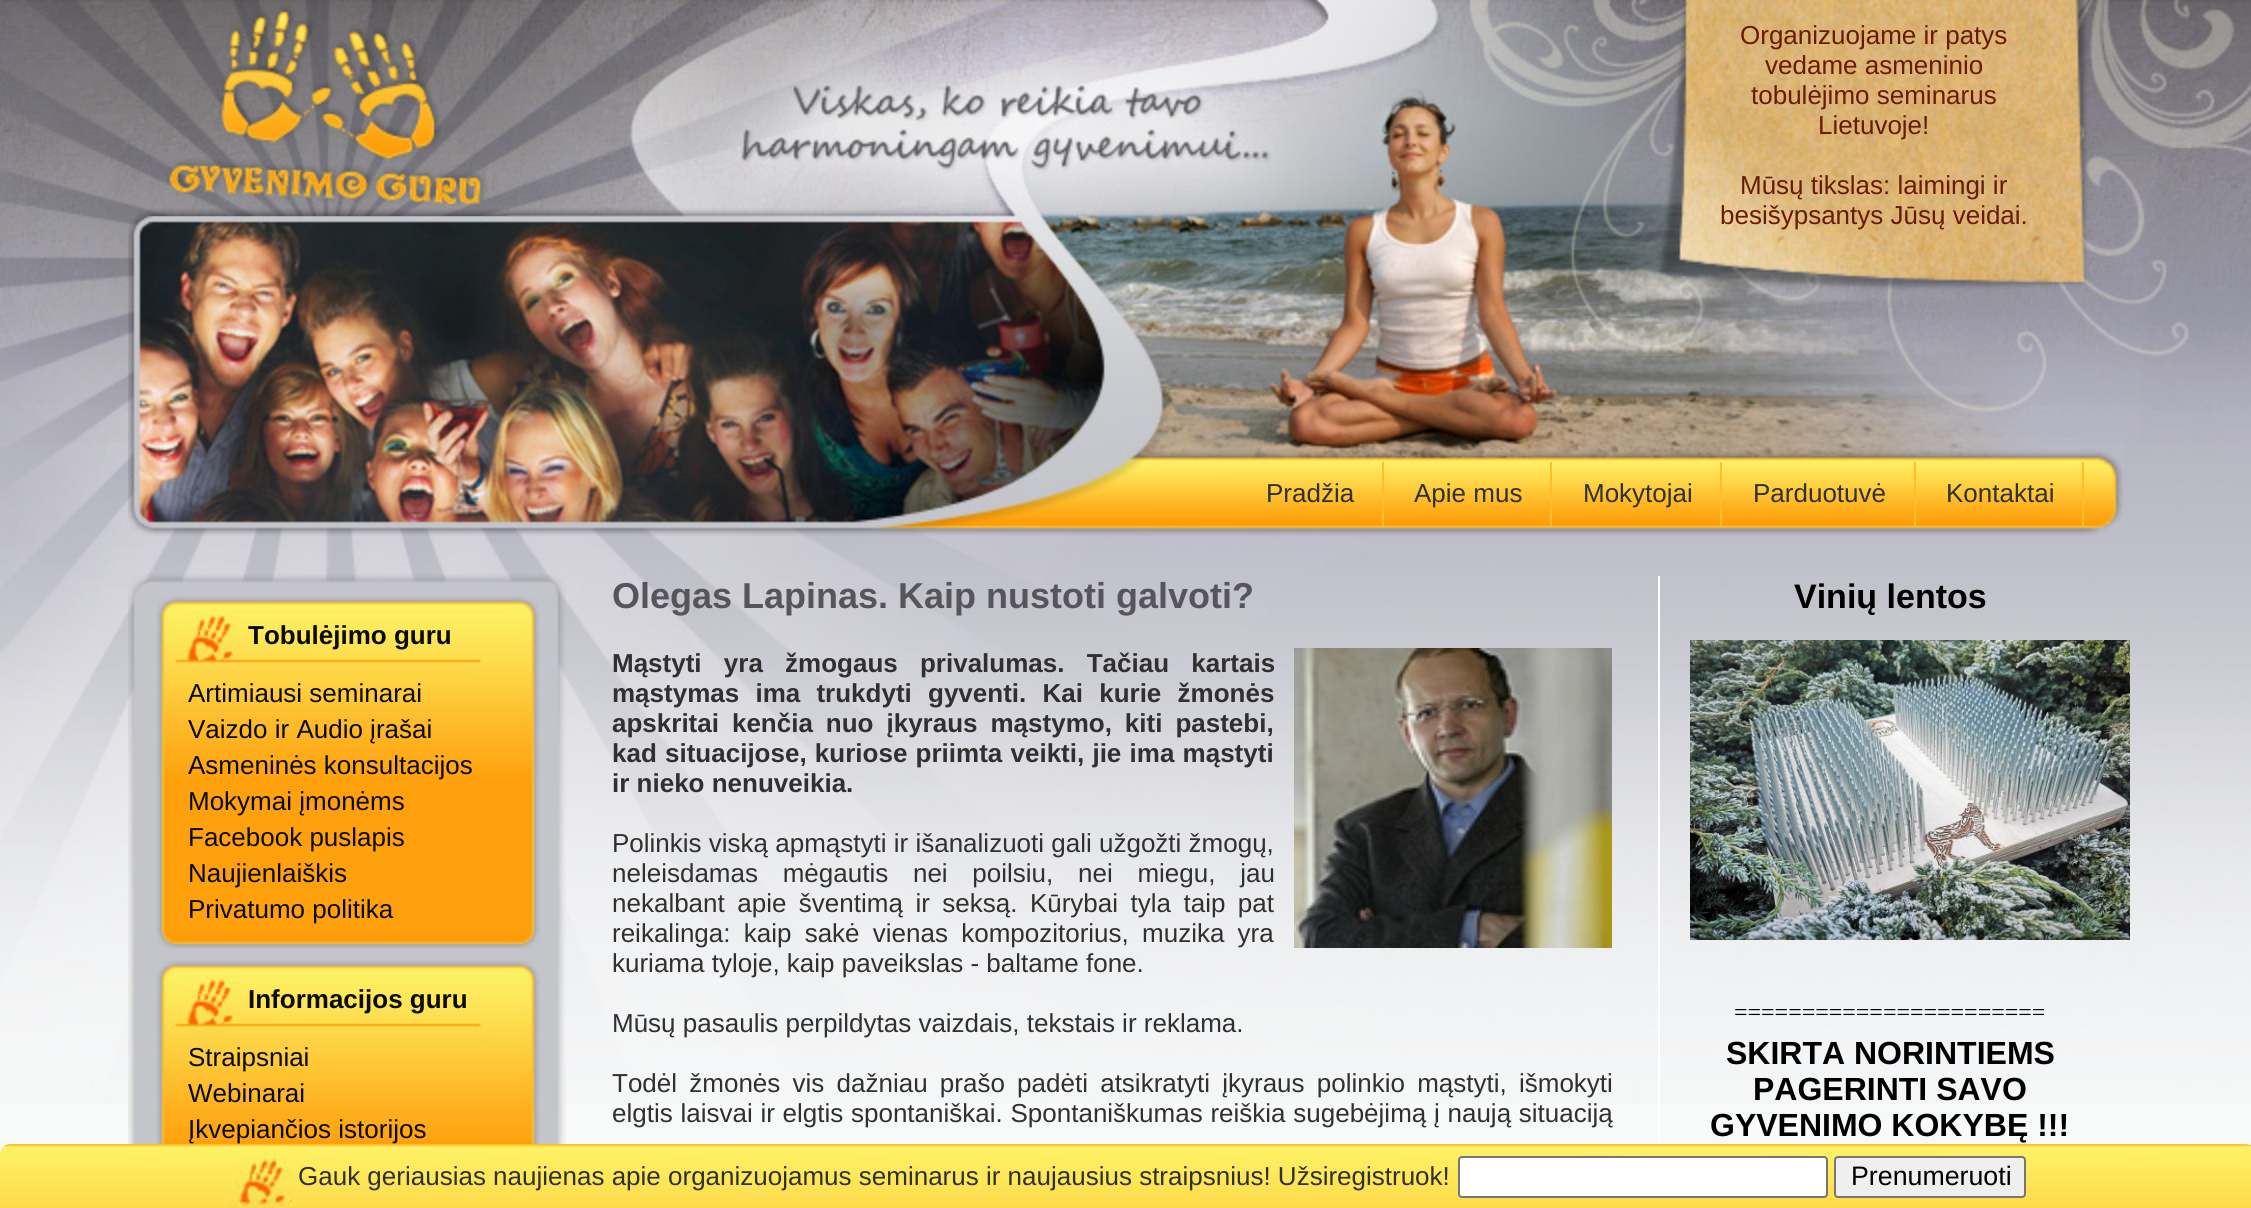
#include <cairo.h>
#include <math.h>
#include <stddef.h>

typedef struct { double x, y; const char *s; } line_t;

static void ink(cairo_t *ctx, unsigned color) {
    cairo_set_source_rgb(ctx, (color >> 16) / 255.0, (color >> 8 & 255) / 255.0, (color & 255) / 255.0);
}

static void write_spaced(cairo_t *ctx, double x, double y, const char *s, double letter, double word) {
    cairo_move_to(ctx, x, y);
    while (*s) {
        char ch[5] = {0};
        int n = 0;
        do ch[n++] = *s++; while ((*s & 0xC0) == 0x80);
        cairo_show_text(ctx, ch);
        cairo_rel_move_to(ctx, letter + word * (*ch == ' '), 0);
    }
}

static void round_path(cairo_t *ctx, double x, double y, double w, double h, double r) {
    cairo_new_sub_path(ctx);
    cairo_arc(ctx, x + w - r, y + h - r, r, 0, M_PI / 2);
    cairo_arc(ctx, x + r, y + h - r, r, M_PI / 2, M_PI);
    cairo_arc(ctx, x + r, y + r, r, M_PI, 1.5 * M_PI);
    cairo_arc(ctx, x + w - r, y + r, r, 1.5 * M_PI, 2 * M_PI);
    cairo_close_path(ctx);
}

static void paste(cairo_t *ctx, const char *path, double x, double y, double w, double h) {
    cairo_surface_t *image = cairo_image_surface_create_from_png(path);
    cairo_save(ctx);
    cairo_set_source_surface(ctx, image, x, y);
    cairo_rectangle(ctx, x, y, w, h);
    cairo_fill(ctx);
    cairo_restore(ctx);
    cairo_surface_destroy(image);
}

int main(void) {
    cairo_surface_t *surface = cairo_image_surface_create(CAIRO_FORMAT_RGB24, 2251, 1208);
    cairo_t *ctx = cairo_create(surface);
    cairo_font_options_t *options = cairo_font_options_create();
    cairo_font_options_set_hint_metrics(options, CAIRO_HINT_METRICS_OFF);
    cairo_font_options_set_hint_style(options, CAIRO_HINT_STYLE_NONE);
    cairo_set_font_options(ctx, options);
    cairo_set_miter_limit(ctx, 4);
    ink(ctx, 0xF8F9F9);
    cairo_paint(ctx);
    paste(ctx, "media/1.png", 0, 0, 2251, 1104);
    paste(ctx, "media/2.png", 128, 0, 1996, 536);
    paste(ctx, "media/3.png", 146, 27, 362, 189);
    cairo_select_font_face(ctx, "Liberation Sans", CAIRO_FONT_SLANT_NORMAL, CAIRO_FONT_WEIGHT_NORMAL);
    cairo_set_font_size(ctx, 26);
    ink(ctx, 0x681A04);
    {
        static const line_t items[] = {
            {1740, 44, "Organizuojame ir patys"},
            {1765, 74, "vedame asmeninio"},
            {1751, 104, "tobulėjimo seminarus"},
            {1818, 134, "Lietuvoje!"},
            {1740, 194, "Mūsų tikslas: laimingi ir"},
            {1720, 224, "besišypsantys Jūsų veidai."},
        };
        for (size_t i = 0; i < sizeof items / sizeof *items; i++) {
            cairo_move_to(ctx, items[i].x, items[i].y);
            cairo_show_text(ctx, items[i].s);
        }
    }
    ink(ctx, 0x303030);
    cairo_move_to(ctx, 1266, 502);
    cairo_show_text(ctx, "Pradžia");
    ink(ctx, 0xFFBE2E);
    cairo_rectangle(ctx, 1382, 462, 2, 64);
    cairo_fill(ctx);
    ink(ctx, 0x303030);
    cairo_move_to(ctx, 1414, 502);
    cairo_show_text(ctx, "Apie mus");
    ink(ctx, 0xFFBE2E);
    cairo_rectangle(ctx, 1550, 462, 2, 64);
    cairo_fill(ctx);
    ink(ctx, 0x303030);
    cairo_move_to(ctx, 1583, 502);
    cairo_show_text(ctx, "Mokytojai");
    ink(ctx, 0xFFBE2E);
    cairo_rectangle(ctx, 1720, 462, 2, 64);
    cairo_fill(ctx);
    ink(ctx, 0x303030);
    cairo_move_to(ctx, 1753, 502);
    cairo_show_text(ctx, "Parduotuvė");
    ink(ctx, 0xFFBE2E);
    cairo_rectangle(ctx, 1914, 462, 2, 64);
    cairo_fill(ctx);
    ink(ctx, 0x303030);
    cairo_move_to(ctx, 1946, 502);
    cairo_show_text(ctx, "Kontaktai");
    ink(ctx, 0xFFBE2E);
    cairo_rectangle(ctx, 2082, 462, 2, 64);
    cairo_fill(ctx);
    paste(ctx, "media/4.png", 128, 536, 438, 608);
    paste(ctx, "media/5.png", 156, 777, 384, 151);
    paste(ctx, "media/6.png", 156, 596, 384, 181);
    cairo_select_font_face(ctx, "Liberation Sans", CAIRO_FONT_SLANT_NORMAL, CAIRO_FONT_WEIGHT_BOLD);
    ink(ctx, 0x0A0A0A);
    cairo_move_to(ctx, 248, 644);
    cairo_show_text(ctx, "Tobulėjimo guru");
    cairo_select_font_face(ctx, "Liberation Sans", CAIRO_FONT_SLANT_NORMAL, CAIRO_FONT_WEIGHT_NORMAL);
    {
        static const line_t items[] = {
            {188, 702, "Artimiausi seminarai"},
            {188, 738, "Vaizdo ir Audio įrašai"},
            {188, 774, "Asmeninės konsultacijos"},
            {188, 810, "Mokymai įmonėms"},
            {188, 846, "Facebook puslapis"},
            {188, 882, "Naujienlaiškis"},
            {188, 918, "Privatumo politika"},
        };
        for (size_t i = 0; i < sizeof items / sizeof *items; i++) {
            cairo_move_to(ctx, items[i].x, items[i].y);
            cairo_show_text(ctx, items[i].s);
        }
    }
    paste(ctx, "media/7.png", 156, 928, 384, 21);
    paste(ctx, "media/8.png", 156, 1141, 384, 3);
    paste(ctx, "media/6.png", 156, 960, 384, 181);
    cairo_select_font_face(ctx, "Liberation Sans", CAIRO_FONT_SLANT_NORMAL, CAIRO_FONT_WEIGHT_BOLD);
    cairo_move_to(ctx, 248, 1008);
    cairo_show_text(ctx, "Informacijos guru");
    cairo_select_font_face(ctx, "Liberation Sans", CAIRO_FONT_SLANT_NORMAL, CAIRO_FONT_WEIGHT_NORMAL);
    {
        static const line_t items[] = {
            {188, 1066, "Straipsniai"},
            {188, 1102, "Webinarai"},
            {188, 1138, "Įkvepiančios istorijos"},
        };
        for (size_t i = 0; i < sizeof items / sizeof *items; i++) {
            cairo_move_to(ctx, items[i].x, items[i].y);
            cairo_show_text(ctx, items[i].s);
        }
    }
    cairo_select_font_face(ctx, "Liberation Sans", CAIRO_FONT_SLANT_NORMAL, CAIRO_FONT_WEIGHT_BOLD);
    cairo_set_font_size(ctx, 36);
    ink(ctx, 0x55555B);
    cairo_move_to(ctx, 612, 608);
    cairo_show_text(ctx, "Olegas Lapinas. Kaip nustoti galvoti?");
    cairo_set_font_size(ctx, 26);
    ink(ctx, 0x303030);
    write_spaced(ctx, 612, 672, "Mąstyti yra žmogaus privalumas. Tačiau kartais", 0, 15);
    paste(ctx, "media/9.png", 1294, 648, 318, 300);
    write_spaced(ctx, 612, 702, "mąstymas ima trukdyti gyventi. Kai kurie žmonės", 0, 9);
    write_spaced(ctx, 612, 732, "apskritai kenčia nuo įkyraus mąstymo, kiti pastebi,", 0, 5.75);
    write_spaced(ctx, 612, 762, "kad situacijose, kuriose priimta veikti, jie ima mąstyti", 0, 1);
    cairo_move_to(ctx, 612, 792);
    cairo_show_text(ctx, "ir nieko nenuveikia.");
    cairo_select_font_face(ctx, "Liberation Sans", CAIRO_FONT_SLANT_NORMAL, CAIRO_FONT_WEIGHT_NORMAL);
    cairo_move_to(ctx, 612, 852);
    cairo_show_text(ctx, "Polinkis viską apmąstyti ir išanalizuoti gali užgožti žmogų,");
    write_spaced(ctx, 612, 882, "neleisdamas mėgautis nei poilsiu, nei miegu, jau", 0, 17.5);
    write_spaced(ctx, 612, 912, "nekalbant apie šventimą ir seksą. Kūrybai tyla taip pat", 0, 5.25);
    write_spaced(ctx, 612, 942, "reikalinga: kaip sakė vienas kompozitorius, muzika yra", 0, 6);
    cairo_move_to(ctx, 612, 972);
    cairo_show_text(ctx, "kuriama tyloje, kaip paveikslas - baltame fone.");
    cairo_move_to(ctx, 612, 1032);
    cairo_show_text(ctx, "Mūsų pasaulis perpildytas vaizdais, tekstais ir reklama.");
    write_spaced(ctx, 612, 1092, "Todėl žmonės vis dažniau prašo padėti atsikratyti įkyraus polinkio mąstyti, išmokyti", 0, 5);
    write_spaced(ctx, 612, 1122, "elgtis laisvai ir elgtis spontaniškai. Spontaniškumas reiškia sugebėjimą į naują situaciją", 0, 0.5);
    ink(ctx, 0xFFFFFF);
    cairo_rectangle(ctx, 1658, 576, 2, 568);
    cairo_fill(ctx);
    cairo_select_font_face(ctx, "Liberation Sans", CAIRO_FONT_SLANT_NORMAL, CAIRO_FONT_WEIGHT_BOLD);
    cairo_set_font_size(ctx, 34);
    ink(ctx, 0x000000);
    cairo_move_to(ctx, 1794, 608);
    cairo_show_text(ctx, "Vinių lentos");
    paste(ctx, "media/10.png", 1690, 640, 440, 300);
    cairo_select_font_face(ctx, "Liberation Serif", CAIRO_FONT_SLANT_NORMAL, CAIRO_FONT_WEIGHT_NORMAL);
    cairo_set_font_size(ctx, 24);
    cairo_move_to(ctx, 1734, 1020);
    cairo_show_text(ctx, "=======================");
    cairo_select_font_face(ctx, "Liberation Sans", CAIRO_FONT_SLANT_NORMAL, CAIRO_FONT_WEIGHT_BOLD);
    cairo_set_font_size(ctx, 32);
    {
        static const line_t items[] = {
            {1726, 1064, "SKIRTA NORINTIEMS"},
            {1753, 1100, "PAGERINTI SAVO"},
            {1710, 1136, "GYVENIMO KOKYBĘ !!!"},
        };
        for (size_t i = 0; i < sizeof items / sizeof *items; i++) {
            cairo_move_to(ctx, items[i].x, items[i].y);
            cairo_show_text(ctx, items[i].s);
        }
    }
    paste(ctx, "media/11.png", 0, 1144, 2251, 64);
    paste(ctx, "media/12.png", 230, 1146, 62, 60);
    cairo_select_font_face(ctx, "Liberation Sans", CAIRO_FONT_SLANT_NORMAL, CAIRO_FONT_WEIGHT_NORMAL);
    cairo_set_font_size(ctx, 26);
    ink(ctx, 0x303030);
    cairo_move_to(ctx, 298, 1185);
    cairo_show_text(ctx, "Gauk geriausias naujienas apie organizuojamus seminarus ir naujausius straipsnius! Užsiregistruok!");
    ink(ctx, 0xFFFFFF);
    round_path(ctx, 1459, 1157, 368, 40, 3);
    cairo_fill_preserve(ctx);
    ink(ctx, 0x767676);
    cairo_stroke(ctx);
    ink(ctx, 0xEFEFEF);
    round_path(ctx, 1835, 1157, 190, 40, 3);
    cairo_fill_preserve(ctx);
    ink(ctx, 0x767676);
    cairo_stroke(ctx);
    cairo_set_font_size(ctx, 26.75);
    ink(ctx, 0x000000);
    cairo_move_to(ctx, 1851, 1185);
    cairo_show_text(ctx, "Prenumeruoti");
    cairo_surface_write_to_png(surface, "image.png");
    cairo_font_options_destroy(options);
    cairo_destroy(ctx);
    cairo_surface_destroy(surface);
    return 0;
}
